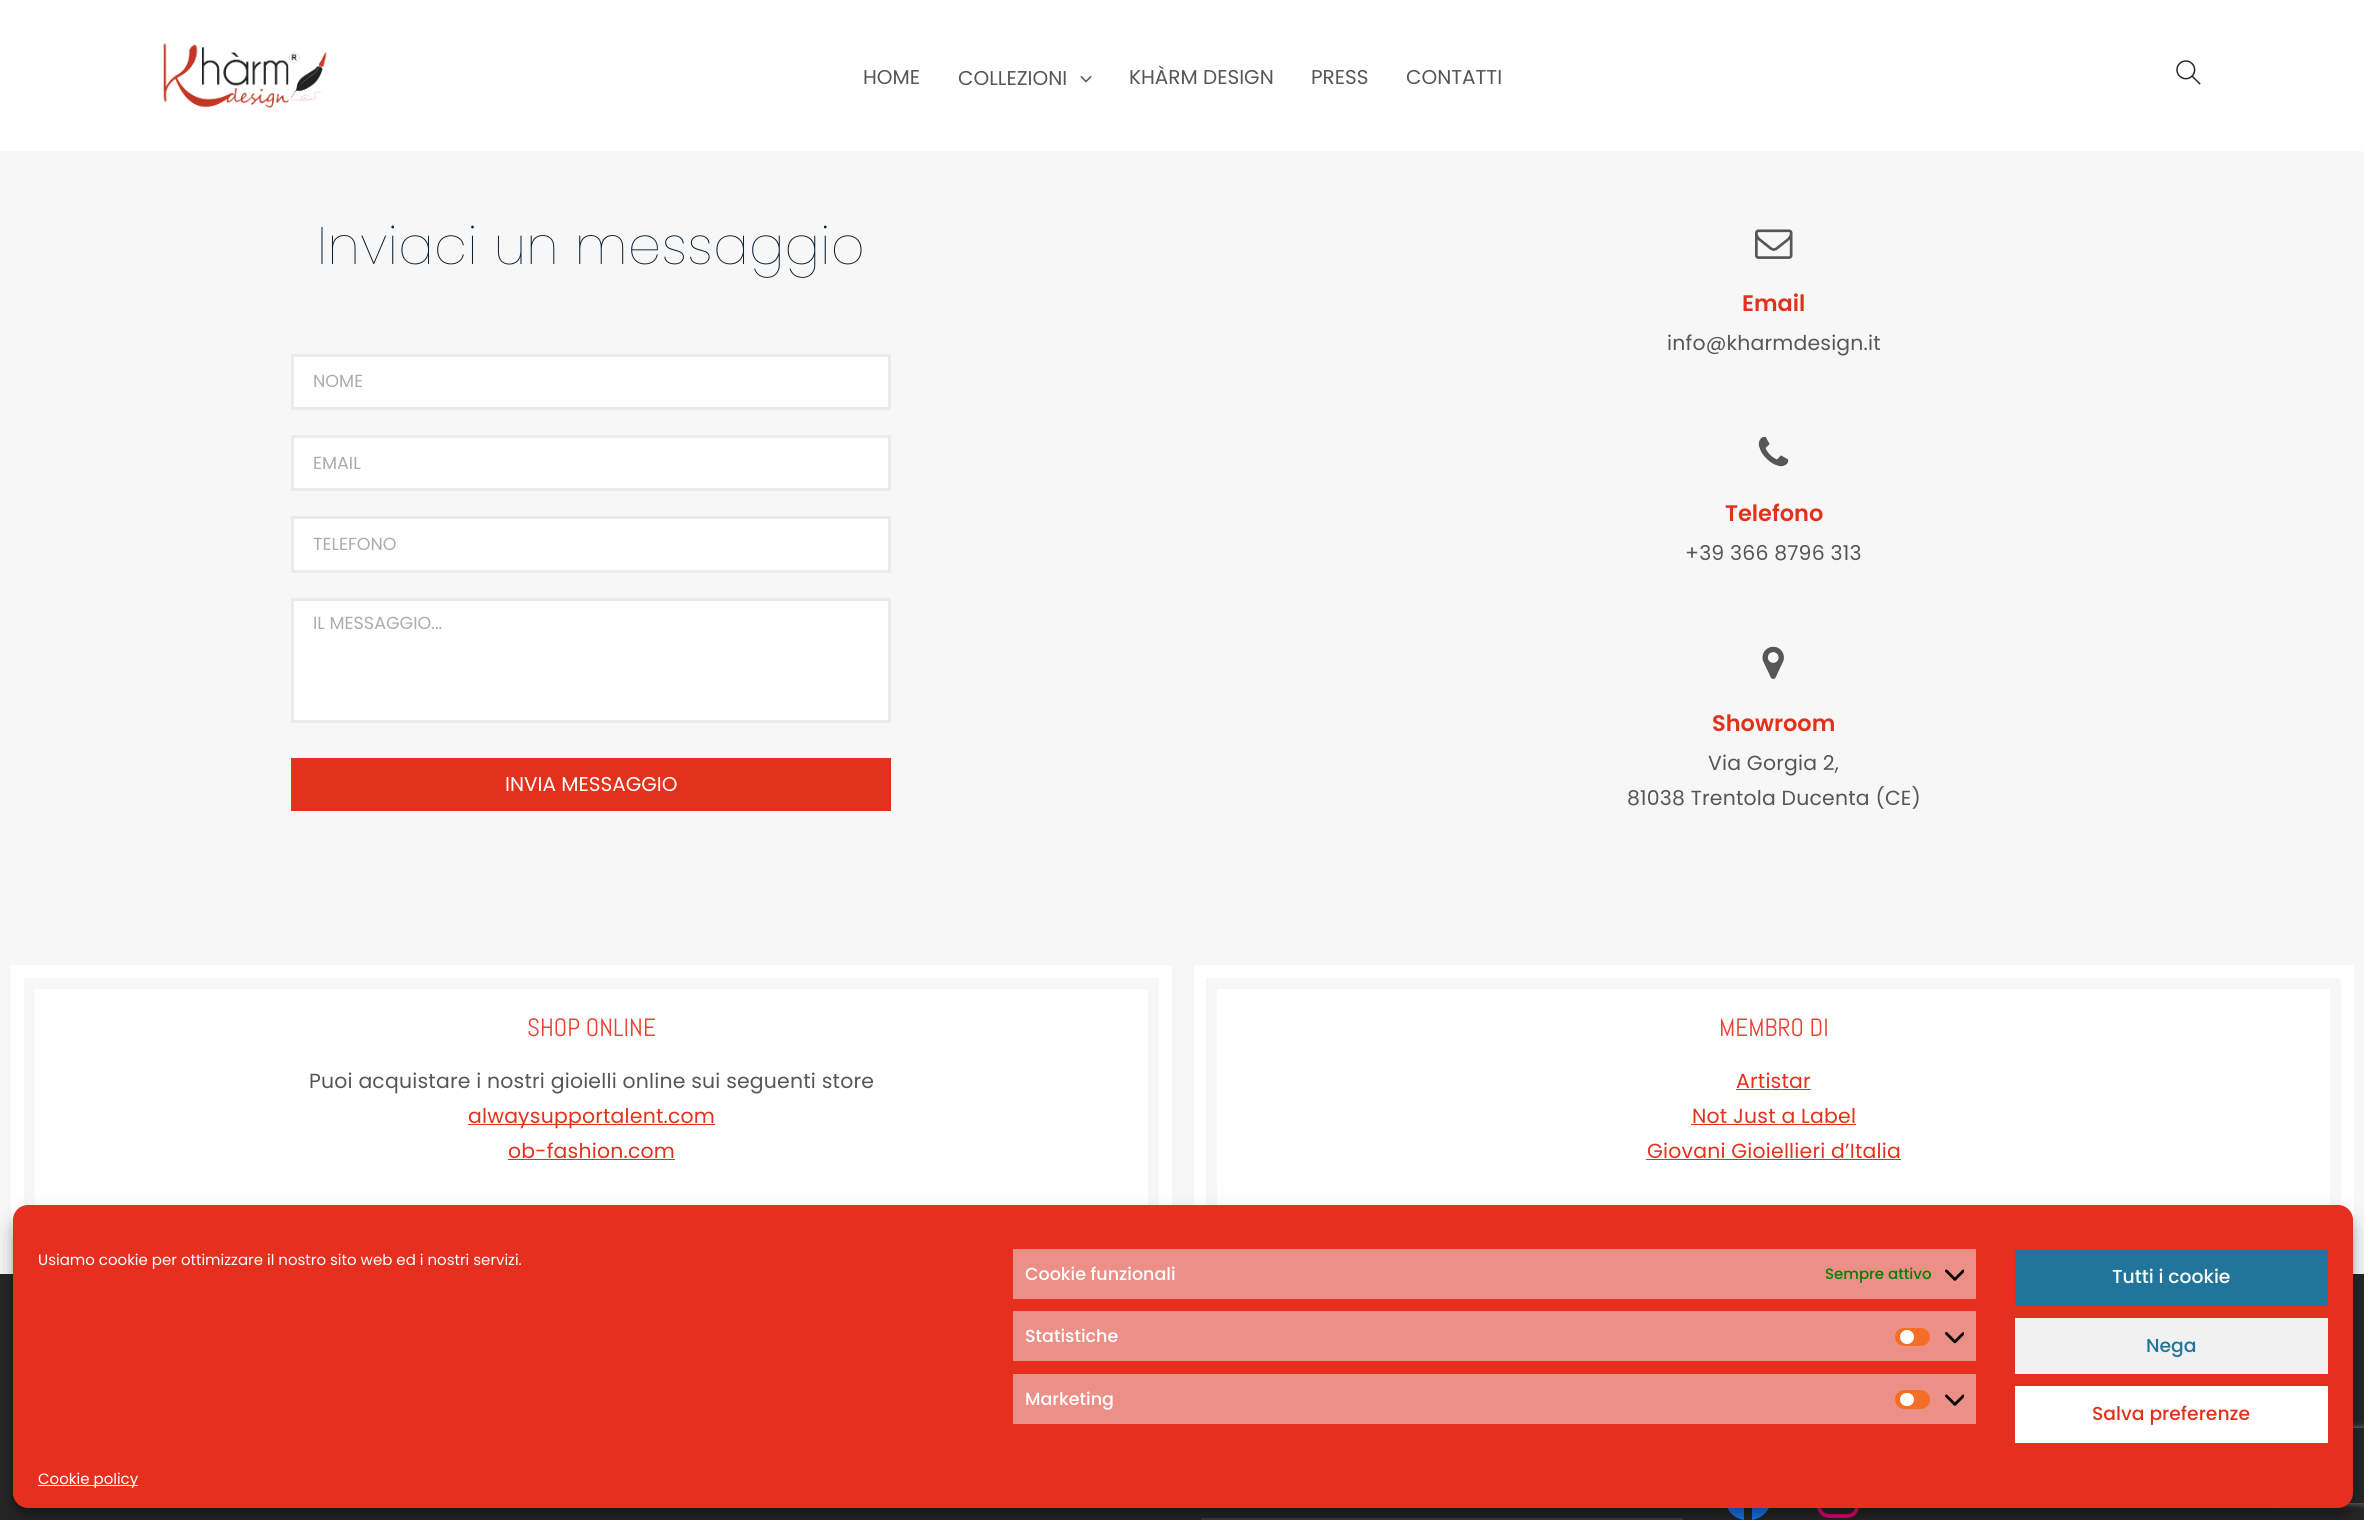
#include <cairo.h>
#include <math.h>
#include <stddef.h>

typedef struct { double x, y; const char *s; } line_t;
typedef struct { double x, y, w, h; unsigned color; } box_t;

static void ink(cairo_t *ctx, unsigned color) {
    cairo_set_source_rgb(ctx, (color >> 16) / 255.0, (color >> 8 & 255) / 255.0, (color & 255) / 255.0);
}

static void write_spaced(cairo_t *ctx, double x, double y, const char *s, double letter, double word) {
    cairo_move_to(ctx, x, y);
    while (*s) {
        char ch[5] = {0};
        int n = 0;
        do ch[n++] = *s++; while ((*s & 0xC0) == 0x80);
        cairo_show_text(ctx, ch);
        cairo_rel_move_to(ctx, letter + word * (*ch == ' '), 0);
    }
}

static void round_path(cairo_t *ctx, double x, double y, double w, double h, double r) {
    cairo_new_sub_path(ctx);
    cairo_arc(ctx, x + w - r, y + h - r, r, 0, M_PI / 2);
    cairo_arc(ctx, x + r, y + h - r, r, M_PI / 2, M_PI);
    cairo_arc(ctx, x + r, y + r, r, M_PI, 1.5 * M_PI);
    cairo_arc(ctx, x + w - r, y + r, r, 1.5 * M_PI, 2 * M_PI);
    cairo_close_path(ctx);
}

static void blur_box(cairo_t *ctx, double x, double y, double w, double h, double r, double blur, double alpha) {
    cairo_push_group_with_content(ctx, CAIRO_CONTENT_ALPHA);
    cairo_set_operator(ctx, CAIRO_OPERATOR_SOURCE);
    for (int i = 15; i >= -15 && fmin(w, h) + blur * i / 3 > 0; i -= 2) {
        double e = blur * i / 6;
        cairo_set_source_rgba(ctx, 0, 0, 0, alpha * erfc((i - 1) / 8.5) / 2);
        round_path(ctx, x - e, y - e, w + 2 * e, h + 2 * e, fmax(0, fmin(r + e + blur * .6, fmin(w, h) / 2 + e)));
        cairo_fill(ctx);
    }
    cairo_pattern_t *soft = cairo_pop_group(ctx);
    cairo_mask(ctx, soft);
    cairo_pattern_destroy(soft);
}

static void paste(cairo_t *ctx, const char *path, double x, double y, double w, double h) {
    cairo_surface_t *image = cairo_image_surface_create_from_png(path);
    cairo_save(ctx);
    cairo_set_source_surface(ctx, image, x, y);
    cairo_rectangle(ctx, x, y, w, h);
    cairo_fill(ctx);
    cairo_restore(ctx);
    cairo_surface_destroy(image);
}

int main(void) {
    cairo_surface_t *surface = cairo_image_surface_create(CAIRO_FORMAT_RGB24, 2364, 1520);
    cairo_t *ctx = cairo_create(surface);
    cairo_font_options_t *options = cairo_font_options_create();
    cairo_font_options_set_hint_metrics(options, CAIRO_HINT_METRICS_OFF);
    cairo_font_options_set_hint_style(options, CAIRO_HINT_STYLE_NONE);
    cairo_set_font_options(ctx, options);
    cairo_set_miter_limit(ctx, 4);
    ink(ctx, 0xFFFFFF);
    cairo_paint(ctx);
    paste(ctx, "media/1.png", 163, 43, 164, 65);
    cairo_select_font_face(ctx, "Poppins", CAIRO_FONT_SLANT_NORMAL, CAIRO_FONT_WEIGHT_NORMAL);
    cairo_set_font_size(ctx, 20);
    ink(ctx, 0x565656);
    cairo_move_to(ctx, 863, 84);
    cairo_show_text(ctx, "HOME");
    cairo_move_to(ctx, 958, 85);
    cairo_show_text(ctx, "COLLEZIONI");
    paste(ctx, "media/2.png", 1080, 76, 12, 7);
    {
        static const line_t items[] = {
            {1129, 84, "KHÀRM DESIGN"},
            {1311, 84, "PRESS"},
            {1406, 84, "CONTATTI"},
        };
        for (size_t i = 0; i < sizeof items / sizeof *items; i++) {
            cairo_move_to(ctx, items[i].x, items[i].y);
            cairo_show_text(ctx, items[i].s);
        }
    }
    paste(ctx, "media/3.png", 2176, 60, 25, 25);
    ink(ctx, 0xF7F7F7);
    cairo_rectangle(ctx, 0, 151, 2364, 1123);
    cairo_fill(ctx);
    cairo_select_font_face(ctx, "Poppins Thin", CAIRO_FONT_SLANT_NORMAL, CAIRO_FONT_WEIGHT_NORMAL);
    cairo_set_font_size(ctx, 52.5);
    ink(ctx, 0x092035);
    write_spaced(ctx, 317, 264, "Inviaci un messaggio", 0.5, 0);
    ink(ctx, 0xFFFFFF);
    cairo_rectangle(ctx, 292.5, 355.5, 597, 53);
    cairo_fill_preserve(ctx);
    ink(ctx, 0xEBEBEB);
    cairo_set_line_width(ctx, 3);
    cairo_stroke(ctx);
    cairo_select_font_face(ctx, "Poppins", CAIRO_FONT_SLANT_NORMAL, CAIRO_FONT_WEIGHT_NORMAL);
    cairo_set_font_size(ctx, 17.5);
    ink(ctx, 0xACACAC);
    cairo_move_to(ctx, 313, 387);
    cairo_show_text(ctx, "NOME");
    ink(ctx, 0xFFFFFF);
    cairo_rectangle(ctx, 292.5, 436.5, 597, 53);
    cairo_fill_preserve(ctx);
    ink(ctx, 0xEBEBEB);
    cairo_stroke(ctx);
    ink(ctx, 0xACACAC);
    cairo_move_to(ctx, 313, 469);
    cairo_show_text(ctx, "EMAIL");
    ink(ctx, 0xFFFFFF);
    cairo_rectangle(ctx, 292.5, 517.5, 597, 54);
    cairo_fill_preserve(ctx);
    ink(ctx, 0xEBEBEB);
    cairo_stroke(ctx);
    ink(ctx, 0xACACAC);
    cairo_move_to(ctx, 313, 550);
    cairo_show_text(ctx, "TELEFONO");
    ink(ctx, 0xFFFFFF);
    cairo_rectangle(ctx, 292.5, 599.5, 597, 122);
    cairo_fill_preserve(ctx);
    ink(ctx, 0xEBEBEB);
    cairo_stroke(ctx);
    ink(ctx, 0xACACAC);
    cairo_move_to(ctx, 313, 629);
    cairo_show_text(ctx, "IL MESSAGGIO...");
    ink(ctx, 0xE2321C);
    cairo_rectangle(ctx, 291, 758, 600, 53);
    cairo_fill(ctx);
    cairo_set_font_size(ctx, 20);
    ink(ctx, 0xFFFFFF);
    cairo_move_to(ctx, 505, 791);
    cairo_show_text(ctx, "INVIA MESSAGGIO");
    paste(ctx, "media/4.png", 1755, 229, 38, 30);
    cairo_select_font_face(ctx, "Poppins SemiBold", CAIRO_FONT_SLANT_NORMAL, CAIRO_FONT_WEIGHT_NORMAL);
    cairo_set_font_size(ctx, 22.5);
    ink(ctx, 0xE2321C);
    cairo_move_to(ctx, 1742, 311);
    cairo_show_text(ctx, "Email");
    cairo_select_font_face(ctx, "Poppins", CAIRO_FONT_SLANT_NORMAL, CAIRO_FONT_WEIGHT_NORMAL);
    cairo_set_font_size(ctx, 20.4);
    ink(ctx, 0x565656);
    write_spaced(ctx, 1667, 350, "info@kharmdesign.it", 0.2, 0);
    paste(ctx, "media/5.png", 1758, 436, 31, 31);
    cairo_select_font_face(ctx, "Poppins SemiBold", CAIRO_FONT_SLANT_NORMAL, CAIRO_FONT_WEIGHT_NORMAL);
    cairo_set_font_size(ctx, 22.5);
    ink(ctx, 0xE2321C);
    cairo_move_to(ctx, 1725, 521);
    cairo_show_text(ctx, "Telefono");
    cairo_select_font_face(ctx, "Poppins", CAIRO_FONT_SLANT_NORMAL, CAIRO_FONT_WEIGHT_NORMAL);
    cairo_set_font_size(ctx, 20.4);
    ink(ctx, 0x565656);
    write_spaced(ctx, 1685, 560, "+39 366 8796 313", 0.2, 0);
    paste(ctx, "media/6.png", 1762, 646, 22, 33);
    cairo_select_font_face(ctx, "Poppins SemiBold", CAIRO_FONT_SLANT_NORMAL, CAIRO_FONT_WEIGHT_NORMAL);
    cairo_set_font_size(ctx, 22.5);
    ink(ctx, 0xE2321C);
    cairo_move_to(ctx, 1712, 731);
    cairo_show_text(ctx, "Showroom");
    cairo_select_font_face(ctx, "Poppins", CAIRO_FONT_SLANT_NORMAL, CAIRO_FONT_WEIGHT_NORMAL);
    cairo_set_font_size(ctx, 20.4);
    ink(ctx, 0x565656);
    write_spaced(ctx, 1708, 770, "Via Gorgia 2,", 0.2, 0);
    write_spaced(ctx, 1627, 805, "81038 Trentola Ducenta (CE)", 0.2, 0);
    ink(ctx, 0xFFFFFF);
    cairo_rectangle(ctx, 11, 965, 1161, 274);
    cairo_fill(ctx);
    cairo_rectangle(ctx, 29.5, 983.5, 1124, 237);
    ink(ctx, 0xF7F7F7);
    cairo_set_line_width(ctx, 11);
    cairo_stroke(ctx);
    cairo_select_font_face(ctx, "Abel", CAIRO_FONT_SLANT_NORMAL, CAIRO_FONT_WEIGHT_NORMAL);
    cairo_set_font_size(ctx, 25);
    ink(ctx, 0xEC4234);
    cairo_move_to(ctx, 527, 1036);
    cairo_show_text(ctx, "SHOP ONLINE");
    cairo_select_font_face(ctx, "Poppins", CAIRO_FONT_SLANT_NORMAL, CAIRO_FONT_WEIGHT_NORMAL);
    cairo_set_font_size(ctx, 20.4);
    ink(ctx, 0x565656);
    write_spaced(ctx, 309, 1088, "Puoi acquistare i nostri gioielli online sui seguenti store", 0.2, 0);
    ink(ctx, 0xE2321C);
    cairo_rectangle(ctx, 468, 1124, 247, 1);
    cairo_fill(ctx);
    write_spaced(ctx, 468, 1123, "alwaysupportalent.com", 0.2, 0);
    write_spaced(ctx, 508, 1158, "ob-fashion.com", 0.2, 0);
    cairo_rectangle(ctx, 508, 1159, 167, 1);
    cairo_fill(ctx);
    ink(ctx, 0xFFFFFF);
    cairo_rectangle(ctx, 1194, 965, 1160, 274);
    cairo_fill(ctx);
    cairo_rectangle(ctx, 1211.5, 983.5, 1124, 237);
    ink(ctx, 0xF7F7F7);
    cairo_stroke(ctx);
    cairo_select_font_face(ctx, "Abel", CAIRO_FONT_SLANT_NORMAL, CAIRO_FONT_WEIGHT_NORMAL);
    cairo_set_font_size(ctx, 25);
    ink(ctx, 0xEC4234);
    cairo_move_to(ctx, 1719, 1036);
    cairo_show_text(ctx, "MEMBRO DI");
    cairo_select_font_face(ctx, "Poppins", CAIRO_FONT_SLANT_NORMAL, CAIRO_FONT_WEIGHT_NORMAL);
    cairo_set_font_size(ctx, 20.4);
    ink(ctx, 0xE2321C);
    write_spaced(ctx, 1736, 1088, "Artistar", 0.2, 0);
    cairo_rectangle(ctx, 1736, 1089, 75, 1);
    cairo_fill(ctx);
    write_spaced(ctx, 1692, 1123, "Not Just a Label", 0.2, 0);
    cairo_rectangle(ctx, 1691, 1124, 165, 1);
    cairo_fill(ctx);
    write_spaced(ctx, 1647, 1158, "Giovani Gioiellieri d’Italia", 0.2, 0);
    {
        static const box_t items[] = {
            {1646, 1159, 255, 1, 0xE2321C},
            {0, 1274, 2364, 246, 0x252525},
            {1201, 1518, 482, 2, 0x3B3B3B},
        };
        for (size_t i = 0; i < sizeof items / sizeof *items; i++) {
            ink(ctx, items[i].color);
            cairo_rectangle(ctx, items[i].x, items[i].y, items[i].w, items[i].h);
            cairo_fill(ctx);
        }
    }
    ink(ctx, 0x1778F2);
    cairo_new_path(ctx);
    cairo_move_to(ctx, 1748, 1473);
    cairo_curve_to(ctx, 1720, 1473, 1716, 1515, 1744, 1520);
    cairo_line_to(ctx, 1744, 1504);
    cairo_line_to(ctx, 1739, 1504);
    cairo_line_to(ctx, 1739, 1497);
    cairo_line_to(ctx, 1744, 1497);
    cairo_curve_to(ctx, 1744, 1486, 1746, 1481, 1758, 1483);
    cairo_line_to(ctx, 1758, 1489);
    cairo_curve_to(ctx, 1751, 1489, 1752, 1490, 1752, 1497);
    cairo_line_to(ctx, 1758, 1497);
    cairo_line_to(ctx, 1757, 1504);
    cairo_line_to(ctx, 1752, 1504);
    cairo_line_to(ctx, 1752, 1520);
    cairo_curve_to(ctx, 1780, 1515, 1777, 1473, 1748, 1473);
    cairo_close_path(ctx);
    cairo_fill(ctx);
    paste(ctx, "media/7.png", 1817, 1508, 42, 10);
    ink(ctx, 0x000000);
    blur_box(ctx, 13, 1213, 2340, 302, 15, 4, 0.23);
    blur_box(ctx, 13, 1218, 2340, 302, 15, 12.5, 0.19);
    cairo_save(ctx);
    cairo_set_fill_rule(ctx, CAIRO_FILL_RULE_EVEN_ODD);
    cairo_new_path(ctx);
    cairo_move_to(ctx, 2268, 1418);
    cairo_line_to(ctx, 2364, 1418);
    cairo_line_to(ctx, 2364, 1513);
    cairo_line_to(ctx, 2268, 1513);
    cairo_close_path(ctx);
    cairo_move_to(ctx, 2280.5, 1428);
    cairo_line_to(ctx, 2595.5, 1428);
    cairo_curve_to(ctx, 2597, 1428, 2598, 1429, 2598, 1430.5);
    cairo_line_to(ctx, 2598, 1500.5);
    cairo_curve_to(ctx, 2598, 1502, 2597, 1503, 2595.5, 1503);
    cairo_line_to(ctx, 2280.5, 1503);
    cairo_curve_to(ctx, 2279, 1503, 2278, 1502, 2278, 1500.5);
    cairo_line_to(ctx, 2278, 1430.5);
    cairo_curve_to(ctx, 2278, 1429, 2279, 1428, 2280.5, 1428);
    cairo_close_path(ctx);
    cairo_clip(ctx);
    ink(ctx, 0x808080);
    blur_box(ctx, 2278, 1428, 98, 75, 2.5, 3, 1);
    cairo_restore(ctx);
    ink(ctx, 0xE62F1F);
    round_path(ctx, 13, 1205, 2340, 303, 15);
    cairo_fill(ctx);
    cairo_set_font_size(ctx, 15);
    ink(ctx, 0xFFFFFF);
    cairo_move_to(ctx, 38, 1265);
    cairo_show_text(ctx, "Usiamo cookie per ottimizzare il nostro sito web ed i nostri servizi.");
    ink(ctx, 0xEB8F87);
    cairo_rectangle(ctx, 1013, 1249, 963, 50);
    cairo_fill(ctx);
    cairo_select_font_face(ctx, "Poppins Medium", CAIRO_FONT_SLANT_NORMAL, CAIRO_FONT_WEIGHT_NORMAL);
    cairo_set_font_size(ctx, 17.5);
    ink(ctx, 0xFFFFFF);
    cairo_move_to(ctx, 1025, 1280);
    cairo_show_text(ctx, "Cookie funzionali");
    cairo_set_font_size(ctx, 15);
    ink(ctx, 0x008000);
    cairo_move_to(ctx, 1825, 1279);
    cairo_show_text(ctx, "Sempre attivo");
    paste(ctx, "media/8.png", 1945, 1269, 19, 12);
    ink(ctx, 0xEB8F87);
    cairo_rectangle(ctx, 1013, 1311, 963, 50);
    cairo_fill(ctx);
    cairo_set_font_size(ctx, 17.5);
    ink(ctx, 0xFFFFFF);
    cairo_move_to(ctx, 1025, 1342);
    cairo_show_text(ctx, "Statistiche");
    ink(ctx, 0xF56E28);
    round_path(ctx, 1895, 1328, 35, 18, 9);
    cairo_fill(ctx);
    ink(ctx, 0xFFFFFF);
    cairo_arc(ctx, 1907, 1337, 7, 0, 2 * M_PI);
    cairo_fill(ctx);
    paste(ctx, "media/9.png", 1945, 1332, 19, 12);
    ink(ctx, 0xEB8F87);
    cairo_rectangle(ctx, 1013, 1374, 963, 50);
    cairo_fill(ctx);
    ink(ctx, 0xFFFFFF);
    cairo_move_to(ctx, 1025, 1405);
    cairo_show_text(ctx, "Marketing");
    ink(ctx, 0xF56E28);
    round_path(ctx, 1895, 1390, 35, 19, 9.5);
    cairo_fill(ctx);
    ink(ctx, 0xFFFFFF);
    round_path(ctx, 1900, 1393, 14, 13, 6.5);
    cairo_fill(ctx);
    paste(ctx, "media/8.png", 1945, 1394, 19, 12);
    ink(ctx, 0x21759B);
    cairo_rectangle(ctx, 2015, 1249, 313, 56);
    cairo_fill(ctx);
    cairo_set_font_size(ctx, 18.75);
    ink(ctx, 0xFFFFFF);
    cairo_move_to(ctx, 2112, 1283);
    cairo_show_text(ctx, "Tutti i cookie");
    ink(ctx, 0xF1F1F1);
    cairo_rectangle(ctx, 2015, 1318, 313, 56);
    cairo_fill(ctx);
    ink(ctx, 0x21759B);
    cairo_move_to(ctx, 2146, 1352);
    cairo_show_text(ctx, "Nega");
    ink(ctx, 0xFFFFFF);
    cairo_rectangle(ctx, 2015, 1386, 313, 57);
    cairo_fill(ctx);
    ink(ctx, 0xE2321C);
    cairo_move_to(ctx, 2092, 1420);
    cairo_show_text(ctx, "Salva preferenze");
    ink(ctx, 0xFFFFFF);
    cairo_rectangle(ctx, 38, 1485, 100, 1);
    cairo_fill(ctx);
    cairo_select_font_face(ctx, "Poppins", CAIRO_FONT_SLANT_NORMAL, CAIRO_FONT_WEIGHT_NORMAL);
    cairo_set_font_size(ctx, 15);
    cairo_move_to(ctx, 38, 1484);
    cairo_show_text(ctx, "Cookie policy");
    cairo_surface_write_to_png(surface, "image.png");
    cairo_font_options_destroy(options);
    cairo_destroy(ctx);
    cairo_surface_destroy(surface);
    return 0;
}
